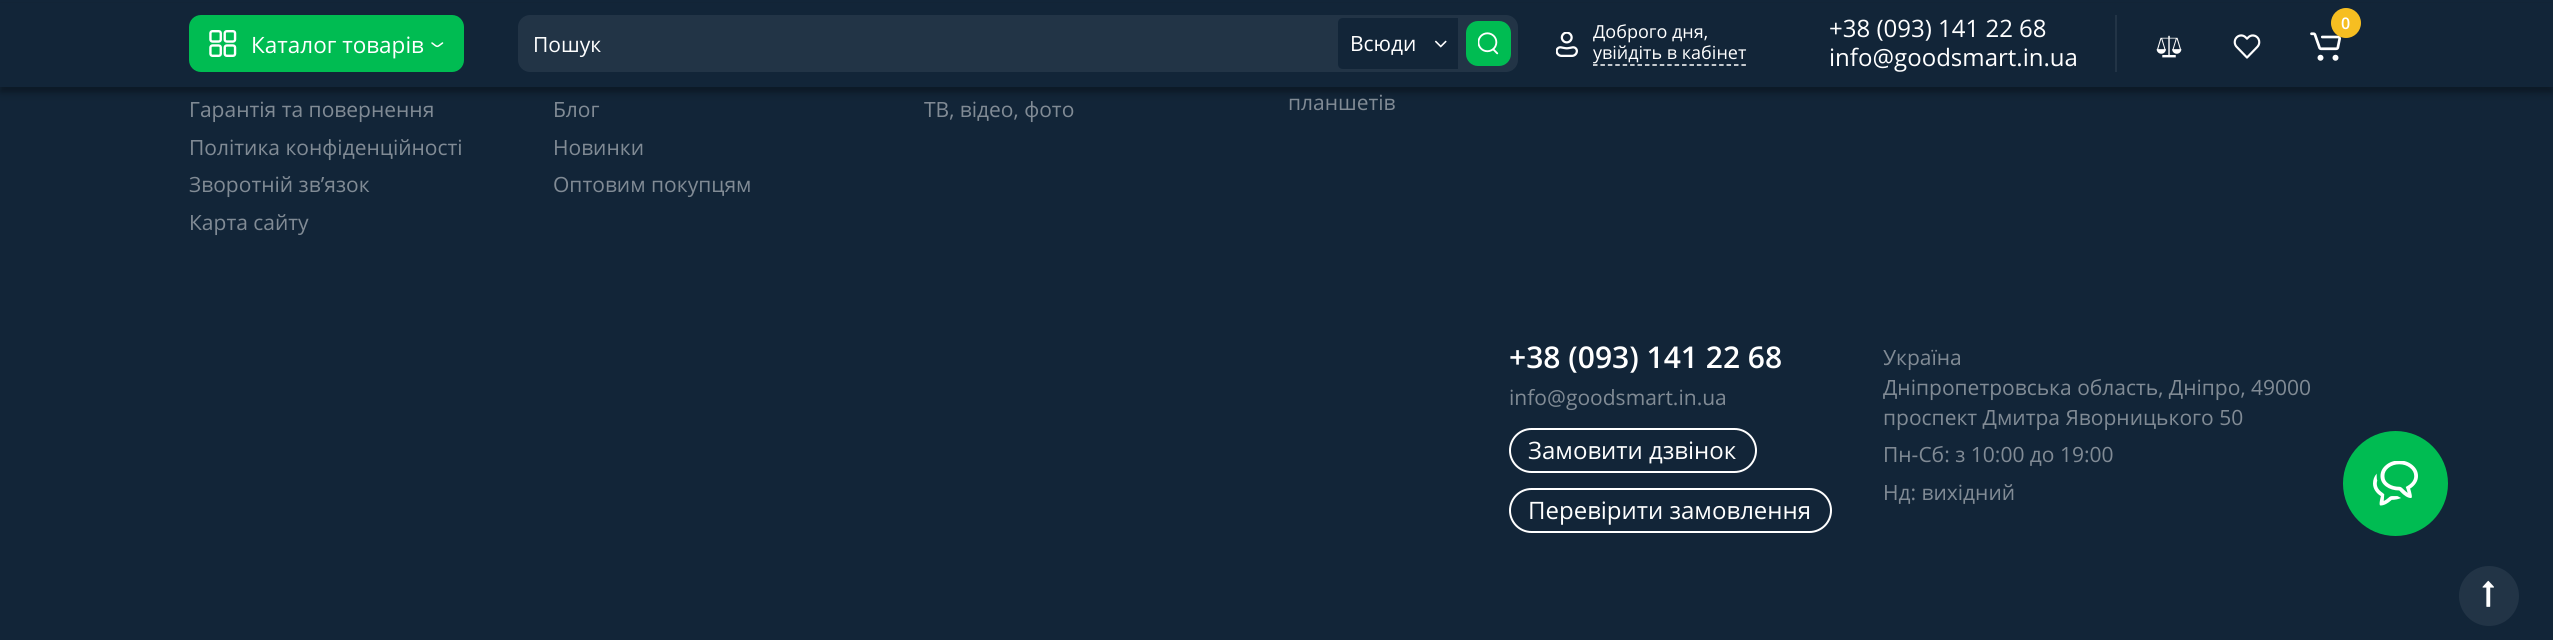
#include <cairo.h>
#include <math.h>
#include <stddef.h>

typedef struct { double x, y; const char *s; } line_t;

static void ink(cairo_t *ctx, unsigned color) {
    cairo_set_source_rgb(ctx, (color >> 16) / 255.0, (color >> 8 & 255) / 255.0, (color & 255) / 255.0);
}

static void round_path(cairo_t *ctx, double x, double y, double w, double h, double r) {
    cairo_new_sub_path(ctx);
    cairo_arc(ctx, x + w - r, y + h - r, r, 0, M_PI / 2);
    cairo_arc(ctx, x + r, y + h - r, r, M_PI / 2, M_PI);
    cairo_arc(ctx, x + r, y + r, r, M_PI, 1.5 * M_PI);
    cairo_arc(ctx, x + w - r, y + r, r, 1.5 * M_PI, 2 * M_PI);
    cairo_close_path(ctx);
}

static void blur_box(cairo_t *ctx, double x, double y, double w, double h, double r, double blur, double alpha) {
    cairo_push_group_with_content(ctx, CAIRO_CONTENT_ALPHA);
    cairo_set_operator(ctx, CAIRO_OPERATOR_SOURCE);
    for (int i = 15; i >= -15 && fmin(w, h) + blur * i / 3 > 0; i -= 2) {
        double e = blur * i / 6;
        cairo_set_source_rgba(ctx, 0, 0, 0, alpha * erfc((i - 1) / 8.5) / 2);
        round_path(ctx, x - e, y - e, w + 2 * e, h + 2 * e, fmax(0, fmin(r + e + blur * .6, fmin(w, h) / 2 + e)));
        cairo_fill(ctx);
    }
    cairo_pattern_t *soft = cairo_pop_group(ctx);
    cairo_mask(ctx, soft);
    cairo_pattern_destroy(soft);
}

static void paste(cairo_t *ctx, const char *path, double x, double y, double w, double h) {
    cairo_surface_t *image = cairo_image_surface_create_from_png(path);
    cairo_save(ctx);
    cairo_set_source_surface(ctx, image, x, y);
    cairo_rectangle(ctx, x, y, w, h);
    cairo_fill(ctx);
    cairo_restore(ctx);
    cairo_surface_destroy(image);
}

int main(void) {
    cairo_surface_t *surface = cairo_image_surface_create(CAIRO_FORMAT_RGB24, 2553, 640);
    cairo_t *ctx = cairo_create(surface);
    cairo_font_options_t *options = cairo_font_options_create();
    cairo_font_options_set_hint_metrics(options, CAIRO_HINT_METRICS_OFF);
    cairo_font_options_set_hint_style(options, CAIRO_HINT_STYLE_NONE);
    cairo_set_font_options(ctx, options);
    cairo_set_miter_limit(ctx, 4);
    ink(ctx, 0x122538);
    cairo_paint(ctx);
    ink(ctx, 0x000000);
    blur_box(ctx, 0, 8, 2553, 87, 0, 4, 0.15);
    blur_box(ctx, 0, 5, 2553, 87, 0, 2, 0.2);
    ink(ctx, 0x122538);
    cairo_rectangle(ctx, 0, 3, 2553, 84);
    cairo_fill(ctx);
    ink(ctx, 0x00BC52);
    round_path(ctx, 189, 15, 275, 57, 12);
    cairo_fill(ctx);
    paste(ctx, "media/1.png", 209, 30, 28, 27);
    cairo_select_font_face(ctx, "Open Sans", CAIRO_FONT_SLANT_NORMAL, CAIRO_FONT_WEIGHT_NORMAL);
    cairo_set_font_size(ctx, 22.5);
    ink(ctx, 0xFFFFFF);
    cairo_move_to(ctx, 251, 53);
    cairo_show_text(ctx, "Каталог товарів");
    cairo_new_path(ctx);
    cairo_move_to(ctx, 442.5, 43);
    cairo_curve_to(ctx, 436.5, 47.5, 438, 47.5, 432, 43);
    cairo_set_line_width(ctx, 1.5);
    cairo_set_line_cap(ctx, CAIRO_LINE_CAP_ROUND);
    cairo_stroke(ctx);
    ink(ctx, 0x223446);
    cairo_new_path(ctx);
    cairo_move_to(ctx, 530, 15);
    cairo_line_to(ctx, 1338, 15);
    cairo_line_to(ctx, 1338, 72);
    cairo_line_to(ctx, 530, 72);
    cairo_curve_to(ctx, 523.5, 72, 518, 66.5, 518, 60);
    cairo_line_to(ctx, 518, 27);
    cairo_curve_to(ctx, 518, 20.5, 523.5, 15, 530, 15);
    cairo_close_path(ctx);
    cairo_fill(ctx);
    cairo_set_font_size(ctx, 21);
    ink(ctx, 0xFFFFFF);
    cairo_move_to(ctx, 533, 52);
    cairo_show_text(ctx, "Пошук");
    ink(ctx, 0x223446);
    cairo_rectangle(ctx, 1338, 15, 120, 57);
    cairo_fill(ctx);
    ink(ctx, 0x122538);
    cairo_new_path(ctx);
    cairo_move_to(ctx, 1343, 18);
    cairo_line_to(ctx, 1461, 18);
    cairo_line_to(ctx, 1461, 69);
    cairo_line_to(ctx, 1343, 69);
    cairo_curve_to(ctx, 1340, 69, 1338, 67, 1338, 64);
    cairo_line_to(ctx, 1338, 23);
    cairo_curve_to(ctx, 1338, 20, 1340, 18, 1343, 18);
    cairo_close_path(ctx);
    cairo_fill(ctx);
    ink(ctx, 0xFFFFFF);
    cairo_move_to(ctx, 1350, 51);
    cairo_show_text(ctx, "Всюди");
    paste(ctx, "media/2.png", 1434, 40, 13, 8);
    ink(ctx, 0x223446);
    cairo_new_path(ctx);
    cairo_move_to(ctx, 1458, 15);
    cairo_line_to(ctx, 1506, 15);
    cairo_curve_to(ctx, 1512.5, 15, 1518, 20.5, 1518, 27);
    cairo_line_to(ctx, 1518, 60);
    cairo_curve_to(ctx, 1518, 66.5, 1512.5, 72, 1506, 72);
    cairo_line_to(ctx, 1458, 72);
    cairo_close_path(ctx);
    cairo_fill(ctx);
    ink(ctx, 0x00BC52);
    round_path(ctx, 1466, 21, 45, 45, 12);
    cairo_fill(ctx);
    paste(ctx, "media/3.png", 1478, 32, 21, 23);
    paste(ctx, "media/4.png", 1556, 32, 22, 25);
    cairo_set_font_size(ctx, 18);
    ink(ctx, 0xFFFFFF);
    cairo_move_to(ctx, 1593, 38);
    cairo_show_text(ctx, "Доброго дня,");
    cairo_new_path(ctx);
    cairo_move_to(ctx, 1593, 65);
    cairo_line_to(ctx, 1746, 65);
    cairo_set_line_cap(ctx, CAIRO_LINE_CAP_BUTT);
    cairo_set_dash(ctx, (double[]){4.5, 2.92}, 2, 0);
    cairo_stroke(ctx);
    cairo_move_to(ctx, 1593, 59);
    cairo_show_text(ctx, "увійдіть в кабінет");
    cairo_set_font_size(ctx, 24);
    cairo_move_to(ctx, 1829, 37);
    cairo_show_text(ctx, "+38 (093) 141 22 68");
    cairo_move_to(ctx, 1829, 66);
    cairo_show_text(ctx, "info@goodsmart.in.ua");
    ink(ctx, 0x223446);
    cairo_rectangle(ctx, 2115, 15, 2, 57);
    cairo_fill(ctx);
    paste(ctx, "media/5.png", 2310, 32, 31, 29);
    ink(ctx, 0xF6BE21);
    cairo_arc(ctx, 2346, 23, 15, 0, 2 * M_PI);
    cairo_fill(ctx);
    cairo_select_font_face(ctx, "Open Sans SemiBold", CAIRO_FONT_SLANT_NORMAL, CAIRO_FONT_WEIGHT_NORMAL);
    cairo_set_font_size(ctx, 16);
    ink(ctx, 0xFFFFFF);
    cairo_move_to(ctx, 2341, 29);
    cairo_show_text(ctx, "0");
    paste(ctx, "media/6.png", 2156, 35, 26, 23);
    paste(ctx, "media/7.png", 2233, 34, 28, 25);
    cairo_select_font_face(ctx, "Open Sans", CAIRO_FONT_SLANT_NORMAL, CAIRO_FONT_WEIGHT_NORMAL);
    cairo_set_font_size(ctx, 21);
    ink(ctx, 0x818B95);
    {
        static const line_t items[] = {
            {189, 117, "Гарантія та повернення"},
            {553, 117, "Блог"},
            {189, 155, "Політика конфіденційності"},
            {553, 155, "Новинки"},
            {189, 192, "Зворотній зв’язок"},
            {553, 192, "Оптовим покупцям"},
            {189, 230, "Карта сайту"},
            {924, 117, "ТВ, відео, фото"},
            {1288, 110, "планшетів"},
        };
        for (size_t i = 0; i < sizeof items / sizeof *items; i++) {
            cairo_move_to(ctx, items[i].x, items[i].y);
            cairo_show_text(ctx, items[i].s);
        }
    }
    cairo_select_font_face(ctx, "Open Sans SemiBold", CAIRO_FONT_SLANT_NORMAL, CAIRO_FONT_WEIGHT_NORMAL);
    cairo_set_font_size(ctx, 30);
    ink(ctx, 0xFFFFFF);
    cairo_move_to(ctx, 1509, 368);
    cairo_show_text(ctx, "+38 (093) 141 22 68");
    cairo_select_font_face(ctx, "Open Sans", CAIRO_FONT_SLANT_NORMAL, CAIRO_FONT_WEIGHT_NORMAL);
    cairo_set_font_size(ctx, 21);
    ink(ctx, 0x818B95);
    cairo_move_to(ctx, 1509, 405);
    cairo_show_text(ctx, "info@goodsmart.in.ua");
    round_path(ctx, 1510, 429, 246, 43, 21.5);
    ink(ctx, 0xFFFFFF);
    cairo_set_line_width(ctx, 2);
    cairo_set_dash(ctx, NULL, 0, 0);
    cairo_stroke(ctx);
    cairo_set_font_size(ctx, 24);
    cairo_move_to(ctx, 1528, 459);
    cairo_show_text(ctx, "Замовити дзвінок");
    round_path(ctx, 1510, 489, 321, 43, 21.5);
    cairo_stroke(ctx);
    cairo_move_to(ctx, 1528, 519);
    cairo_show_text(ctx, "Перевірити замовлення");
    cairo_set_font_size(ctx, 21);
    ink(ctx, 0x818B95);
    {
        static const line_t items[] = {
            {1883, 365, "Україна"},
            {1883, 395, "Дніпропетровська область, Дніпро, 49000"},
            {1883, 425, "проспект Дмитра Яворницького 50"},
            {1883, 462, "Пн-Сб: з 10:00 до 19:00"},
            {1883, 500, "Нд: вихідний"},
        };
        for (size_t i = 0; i < sizeof items / sizeof *items; i++) {
            cairo_move_to(ctx, items[i].x, items[i].y);
            cairo_show_text(ctx, items[i].s);
        }
    }
    ink(ctx, 0x00BC52);
    cairo_new_path(ctx);
    cairo_arc(ctx, 2395.5, 483.5, 52.5, 0, 2 * M_PI);
    cairo_fill(ctx);
    paste(ctx, "media/8.png", 2373, 461, 45, 45);
    ink(ctx, 0x223446);
    cairo_arc(ctx, 2489, 596, 30, 0, 2 * M_PI);
    cairo_fill(ctx);
    paste(ctx, "media/9.png", 2482, 580, 12, 27);
    cairo_surface_write_to_png(surface, "image.png");
    cairo_font_options_destroy(options);
    cairo_destroy(ctx);
    cairo_surface_destroy(surface);
    return 0;
}
